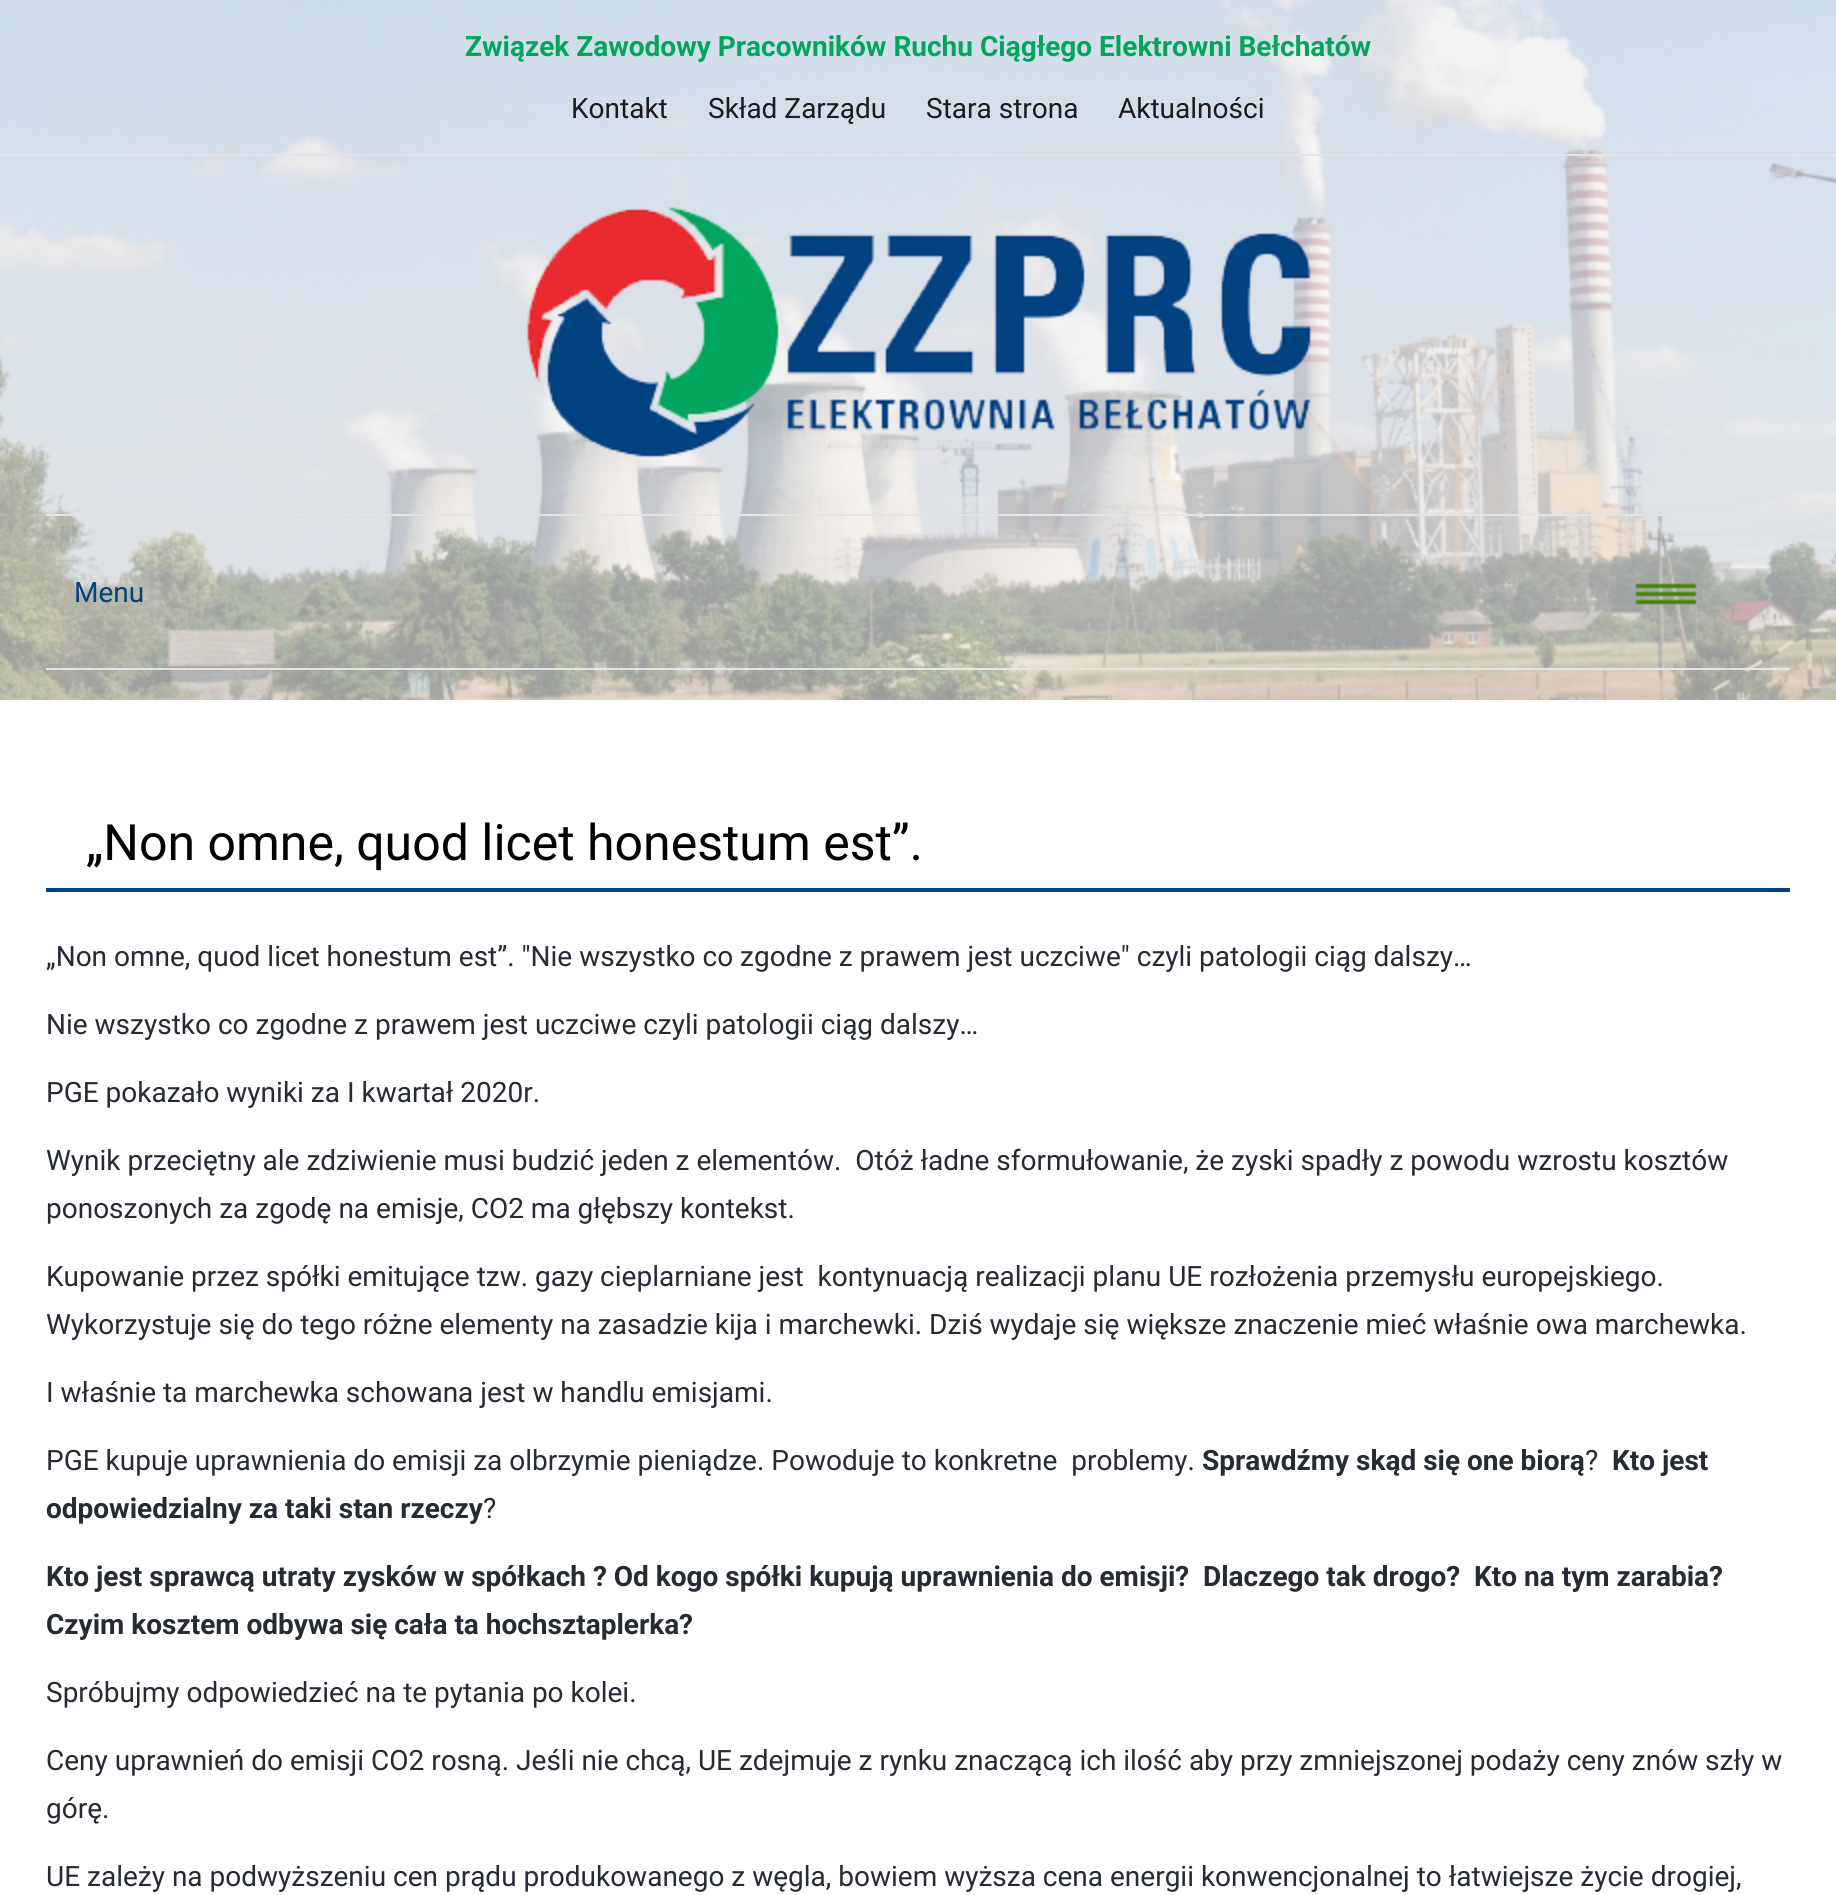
#include <cairo.h>
#include <math.h>
#include <stddef.h>

typedef struct { double x, y; const char *s; } line_t;

static void ink(cairo_t *ctx, unsigned color) {
    cairo_set_source_rgb(ctx, (color >> 16) / 255.0, (color >> 8 & 255) / 255.0, (color & 255) / 255.0);
}

static void paste(cairo_t *ctx, const char *path, double x, double y, double w, double h) {
    cairo_surface_t *image = cairo_image_surface_create_from_png(path);
    cairo_save(ctx);
    cairo_set_source_surface(ctx, image, x, y);
    cairo_rectangle(ctx, x, y, w, h);
    cairo_fill(ctx);
    cairo_restore(ctx);
    cairo_surface_destroy(image);
}

int main(void) {
    cairo_surface_t *surface = cairo_image_surface_create(CAIRO_FORMAT_RGB24, 1836, 1895);
    cairo_t *ctx = cairo_create(surface);
    cairo_font_options_t *options = cairo_font_options_create();
    cairo_font_options_set_hint_metrics(options, CAIRO_HINT_METRICS_OFF);
    cairo_font_options_set_hint_style(options, CAIRO_HINT_STYLE_NONE);
    cairo_set_font_options(ctx, options);
    cairo_set_miter_limit(ctx, 4);
    ink(ctx, 0xFFFFFF);
    cairo_paint(ctx);
    paste(ctx, "media/1.png", 0, 0, 1836, 700);
    ink(ctx, 0xE4E4E4);
    cairo_rectangle(ctx, 0, 154, 1836, 2);
    cairo_fill(ctx);
    cairo_select_font_face(ctx, "Roboto", CAIRO_FONT_SLANT_NORMAL, CAIRO_FONT_WEIGHT_BOLD);
    cairo_set_font_size(ctx, 28);
    ink(ctx, 0x00A65E);
    cairo_move_to(ctx, 465, 56);
    cairo_show_text(ctx, "Związek Zawodowy Pracowników Ruchu Ciągłego Elektrowni Bełchatów");
    cairo_select_font_face(ctx, "Roboto", CAIRO_FONT_SLANT_NORMAL, CAIRO_FONT_WEIGHT_NORMAL);
    ink(ctx, 0x1C1C1C);
    {
        static const line_t items[] = {
            {571, 118, "Kontakt"},
            {708, 118, "Skład Zarządu"},
            {926, 118, "Stara strona"},
            {1118, 118, "Aktualności"},
        };
        for (size_t i = 0; i < sizeof items / sizeof *items; i++) {
            cairo_move_to(ctx, items[i].x, items[i].y);
            cairo_show_text(ctx, items[i].s);
        }
    }
    paste(ctx, "media/2.png", 527, 207, 785, 251);
    ink(ctx, 0xE4E4E4);
    cairo_rectangle(ctx, 46, 514, 1744, 2);
    cairo_fill(ctx);
    cairo_rectangle(ctx, 46, 668, 1744, 2);
    cairo_fill(ctx);
    paste(ctx, "media/3.png", 1635, 583, 62, 22);
    ink(ctx, 0x014281);
    cairo_move_to(ctx, 74, 602);
    cairo_show_text(ctx, "Menu");
    cairo_rectangle(ctx, 46, 888, 1744, 4);
    cairo_fill(ctx);
    cairo_set_font_size(ctx, 50);
    ink(ctx, 0x000000);
    cairo_move_to(ctx, 86, 860);
    cairo_show_text(ctx, "„Non omne, quod licet honestum est”.");
    cairo_set_font_size(ctx, 28);
    ink(ctx, 0x262A33);
    {
        static const line_t items[] = {
            {46, 966, "„Non omne, quod licet honestum est”. \"Nie wszystko co zgodne z prawem jest uczciwe\" czyli patologii ciąg dalszy…"},
            {46, 1034, "Nie wszystko co zgodne z prawem jest uczciwe czyli patologii ciąg dalszy…"},
            {46, 1102, "PGE pokazało wyniki za I kwartał 2020r."},
            {46, 1170, "Wynik przeciętny ale zdziwienie musi budzić jeden z elementów.  Otóż ładne sformułowanie, że zyski spadły z powodu wzrostu kosztów"},
            {46, 1218, "ponoszonych za zgodę na emisje, CO2 ma głębszy kontekst."},
            {46, 1286, "Kupowanie przez spółki emitujące tzw. gazy cieplarniane jest  kontynuacją realizacji planu UE rozłożenia przemysłu europejskiego."},
            {46, 1334, "Wykorzystuje się do tego różne elementy na zasadzie kija i marchewki. Dziś wydaje się większe znaczenie mieć właśnie owa marchewka."},
            {46, 1402, "I właśnie ta marchewka schowana jest w handlu emisjami."},
            {46, 1470, "PGE kupuje uprawnienia do emisji za olbrzymie pieniądze. Powoduje to konkretne  problemy."},
        };
        for (size_t i = 0; i < sizeof items / sizeof *items; i++) {
            cairo_move_to(ctx, items[i].x, items[i].y);
            cairo_show_text(ctx, items[i].s);
        }
    }
    cairo_select_font_face(ctx, "Roboto", CAIRO_FONT_SLANT_NORMAL, CAIRO_FONT_WEIGHT_BOLD);
    cairo_move_to(ctx, 1202, 1470);
    cairo_show_text(ctx, "Sprawdźmy skąd się one biorą");
    cairo_select_font_face(ctx, "Roboto", CAIRO_FONT_SLANT_NORMAL, CAIRO_FONT_WEIGHT_NORMAL);
    cairo_move_to(ctx, 1585, 1470);
    cairo_show_text(ctx, "?");
    cairo_select_font_face(ctx, "Roboto", CAIRO_FONT_SLANT_NORMAL, CAIRO_FONT_WEIGHT_BOLD);
    cairo_move_to(ctx, 1612, 1470);
    cairo_show_text(ctx, "Kto jest");
    cairo_move_to(ctx, 46, 1518);
    cairo_show_text(ctx, "odpowiedzialny za taki stan rzeczy");
    cairo_select_font_face(ctx, "Roboto", CAIRO_FONT_SLANT_NORMAL, CAIRO_FONT_WEIGHT_NORMAL);
    cairo_move_to(ctx, 483, 1518);
    cairo_show_text(ctx, "?");
    cairo_select_font_face(ctx, "Roboto", CAIRO_FONT_SLANT_NORMAL, CAIRO_FONT_WEIGHT_BOLD);
    {
        static const line_t items[] = {
            {46, 1586, "Kto jest sprawcą utraty zysków w spółkach ? Od kogo spółki kupują uprawnienia do emisji?"},
            {1203, 1586, "Dlaczego tak drogo?"},
            {1474, 1586, "Kto na tym zarabia?"},
            {46, 1634, "Czyim kosztem odbywa się cała ta hochsztaplerka?"},
        };
        for (size_t i = 0; i < sizeof items / sizeof *items; i++) {
            cairo_move_to(ctx, items[i].x, items[i].y);
            cairo_show_text(ctx, items[i].s);
        }
    }
    cairo_select_font_face(ctx, "Roboto", CAIRO_FONT_SLANT_NORMAL, CAIRO_FONT_WEIGHT_NORMAL);
    {
        static const line_t items[] = {
            {46, 1702, "Spróbujmy odpowiedzieć na te pytania po kolei."},
            {46, 1770, "Ceny uprawnień do emisji CO2 rosną. Jeśli nie chcą, UE zdejmuje z rynku znaczącą ich ilość aby przy zmniejszonej podaży ceny znów szły w"},
            {46, 1818, "górę."},
            {46, 1886, "UE zależy na podwyższeniu cen prądu produkowanego z węgla, bowiem wyższa cena energii konwencjonalnej to łatwiejsze życie drogiej,"},
        };
        for (size_t i = 0; i < sizeof items / sizeof *items; i++) {
            cairo_move_to(ctx, items[i].x, items[i].y);
            cairo_show_text(ctx, items[i].s);
        }
    }
    cairo_surface_write_to_png(surface, "image.png");
    cairo_font_options_destroy(options);
    cairo_destroy(ctx);
    cairo_surface_destroy(surface);
    return 0;
}
